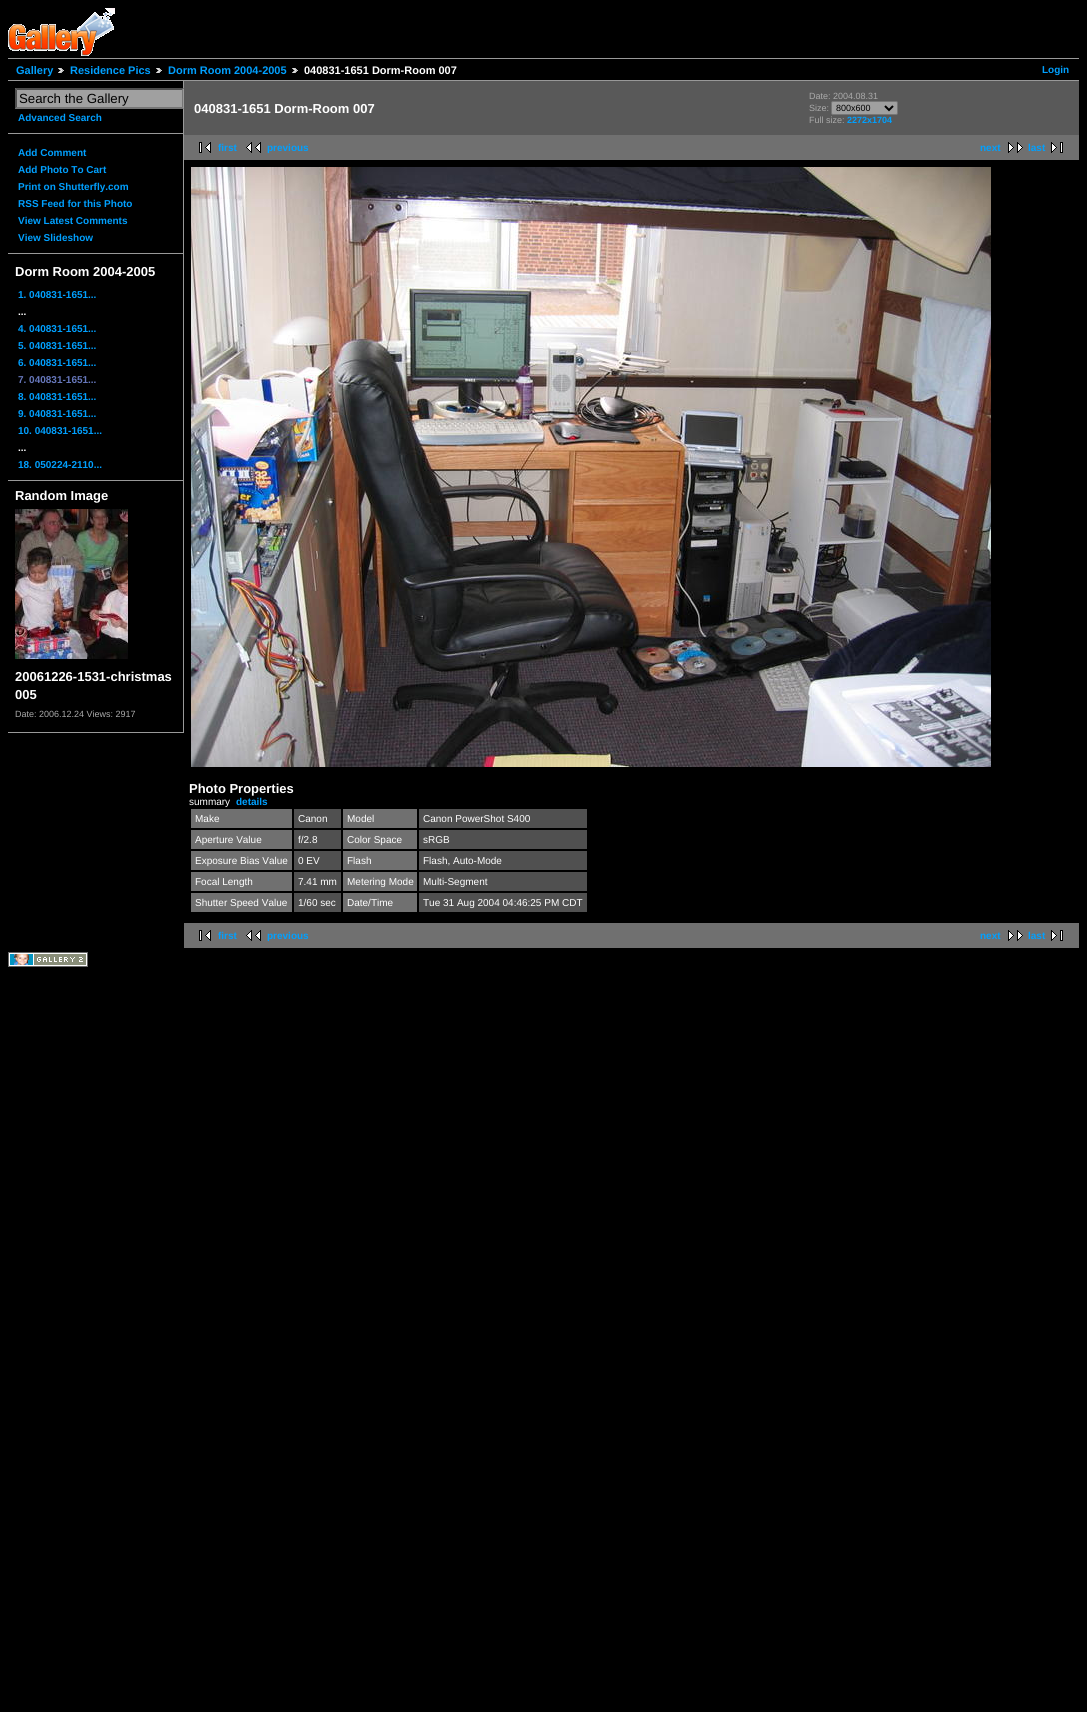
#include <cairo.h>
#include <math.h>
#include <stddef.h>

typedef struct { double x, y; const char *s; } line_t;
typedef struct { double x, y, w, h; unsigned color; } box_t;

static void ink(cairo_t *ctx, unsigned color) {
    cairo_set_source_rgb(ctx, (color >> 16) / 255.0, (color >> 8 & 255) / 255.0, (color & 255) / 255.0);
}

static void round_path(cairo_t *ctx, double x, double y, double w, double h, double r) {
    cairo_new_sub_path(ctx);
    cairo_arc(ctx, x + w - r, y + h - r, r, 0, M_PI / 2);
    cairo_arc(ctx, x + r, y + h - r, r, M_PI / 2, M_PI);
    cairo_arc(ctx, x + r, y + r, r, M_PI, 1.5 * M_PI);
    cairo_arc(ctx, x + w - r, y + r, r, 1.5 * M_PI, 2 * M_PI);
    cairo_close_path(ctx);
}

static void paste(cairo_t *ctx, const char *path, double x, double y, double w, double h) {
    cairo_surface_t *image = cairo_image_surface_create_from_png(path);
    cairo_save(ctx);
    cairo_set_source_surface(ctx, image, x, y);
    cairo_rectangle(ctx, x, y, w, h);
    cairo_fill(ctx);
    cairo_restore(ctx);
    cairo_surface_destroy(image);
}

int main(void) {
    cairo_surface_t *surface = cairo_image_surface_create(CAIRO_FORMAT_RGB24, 1087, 1712);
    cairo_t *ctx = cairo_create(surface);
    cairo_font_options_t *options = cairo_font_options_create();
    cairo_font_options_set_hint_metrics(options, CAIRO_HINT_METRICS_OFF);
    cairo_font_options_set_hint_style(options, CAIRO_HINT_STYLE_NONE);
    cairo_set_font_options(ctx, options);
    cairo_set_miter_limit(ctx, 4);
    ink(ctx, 0x000000);
    cairo_paint(ctx);
    paste(ctx, "media/1.png", 8, 8, 107, 48);
    ink(ctx, 0x999999);
    cairo_rectangle(ctx, 8, 58, 1071, 1);
    cairo_fill(ctx);
    cairo_rectangle(ctx, 8, 80, 1071, 1);
    cairo_fill(ctx);
    cairo_select_font_face(ctx, "Liberation Sans", CAIRO_FONT_SLANT_NORMAL, CAIRO_FONT_WEIGHT_BOLD);
    cairo_set_font_size(ctx, 11);
    ink(ctx, 0x00A0FF);
    cairo_move_to(ctx, 16, 74);
    cairo_show_text(ctx, "Gallery");
    paste(ctx, "media/2.png", 58, 68, 6, 5);
    cairo_move_to(ctx, 70, 74);
    cairo_show_text(ctx, "Residence Pics");
    paste(ctx, "media/2.png", 156, 68, 6, 5);
    cairo_move_to(ctx, 168, 74);
    cairo_show_text(ctx, "Dorm Room 2004-2005");
    paste(ctx, "media/2.png", 292, 68, 6, 5);
    ink(ctx, 0xFFFFFF);
    cairo_move_to(ctx, 304, 74);
    cairo_show_text(ctx, "040831-1651 Dorm-Room 007");
    cairo_set_font_size(ctx, 10);
    ink(ctx, 0x00A0FF);
    cairo_move_to(ctx, 1042, 73);
    cairo_show_text(ctx, "Login");
    {
        static const box_t items[] = {
            {183, 81, 1, 652, 0x999999},
            {8, 133, 175, 1, 0x999999},
            {15, 88, 168, 21, 0xA0A0A0},
        };
        for (size_t i = 0; i < sizeof items / sizeof *items; i++) {
            ink(ctx, items[i].color);
            cairo_rectangle(ctx, items[i].x, items[i].y, items[i].w, items[i].h);
            cairo_fill(ctx);
        }
    }
    ink(ctx, 0x4F4F4F);
    cairo_new_path(ctx);
    cairo_move_to(ctx, 15, 88);
    cairo_line_to(ctx, 184, 88);
    cairo_line_to(ctx, 182, 90);
    cairo_line_to(ctx, 17, 90);
    cairo_close_path(ctx);
    cairo_fill(ctx);
    cairo_save(ctx);
    cairo_rectangle(ctx, 8, 81, 175, 652);
    cairo_clip(ctx);
    ink(ctx, 0x767676);
    cairo_new_path(ctx);
    cairo_move_to(ctx, 184, 88);
    cairo_line_to(ctx, 184, 109);
    cairo_line_to(ctx, 182, 107);
    cairo_line_to(ctx, 182, 90);
    cairo_close_path(ctx);
    cairo_fill(ctx);
    cairo_restore(ctx);
    ink(ctx, 0x767676);
    cairo_new_path(ctx);
    cairo_move_to(ctx, 184, 109);
    cairo_line_to(ctx, 15, 109);
    cairo_line_to(ctx, 17, 107);
    cairo_line_to(ctx, 182, 107);
    cairo_close_path(ctx);
    cairo_fill(ctx);
    ink(ctx, 0x4F4F4F);
    cairo_new_path(ctx);
    cairo_move_to(ctx, 15, 109);
    cairo_line_to(ctx, 15, 88);
    cairo_line_to(ctx, 17, 90);
    cairo_line_to(ctx, 17, 107);
    cairo_close_path(ctx);
    cairo_fill(ctx);
    cairo_select_font_face(ctx, "Liberation Sans", CAIRO_FONT_SLANT_NORMAL, CAIRO_FONT_WEIGHT_NORMAL);
    cairo_set_font_size(ctx, 13.25);
    ink(ctx, 0x000000);
    cairo_move_to(ctx, 19, 103);
    cairo_show_text(ctx, "Search the Gallery");
    cairo_select_font_face(ctx, "Liberation Sans", CAIRO_FONT_SLANT_NORMAL, CAIRO_FONT_WEIGHT_BOLD);
    cairo_set_font_size(ctx, 10);
    ink(ctx, 0x00A0FF);
    cairo_move_to(ctx, 18, 121);
    cairo_show_text(ctx, "Advanced Search");
    ink(ctx, 0x999999);
    cairo_rectangle(ctx, 8, 253, 175, 1);
    cairo_fill(ctx);
    ink(ctx, 0x00A0FF);
    {
        static const line_t items[] = {
            {18, 156, "Add Comment"},
            {18, 173, "Add Photo To Cart"},
            {18, 190, "Print on Shutterfly.com"},
            {18, 207, "RSS Feed for this Photo"},
            {18, 224, "View Latest Comments"},
            {18, 241, "View Slideshow"},
        };
        for (size_t i = 0; i < sizeof items / sizeof *items; i++) {
            cairo_move_to(ctx, items[i].x, items[i].y);
            cairo_show_text(ctx, items[i].s);
        }
    }
    ink(ctx, 0x999999);
    cairo_rectangle(ctx, 8, 480, 175, 1);
    cairo_fill(ctx);
    cairo_set_font_size(ctx, 13);
    ink(ctx, 0xFFFFFF);
    cairo_move_to(ctx, 15, 276);
    cairo_show_text(ctx, "Dorm Room 2004-2005");
    cairo_set_font_size(ctx, 10);
    ink(ctx, 0x00A0FF);
    cairo_move_to(ctx, 18, 298);
    cairo_show_text(ctx, "1. 040831-1651...");
    ink(ctx, 0xFFFFFF);
    cairo_move_to(ctx, 18, 315);
    cairo_show_text(ctx, "...");
    ink(ctx, 0x00A0FF);
    {
        static const line_t items[] = {
            {18, 332, "4. 040831-1651..."},
            {18, 349, "5. 040831-1651..."},
            {18, 366, "6. 040831-1651..."},
        };
        for (size_t i = 0; i < sizeof items / sizeof *items; i++) {
            cairo_move_to(ctx, items[i].x, items[i].y);
            cairo_show_text(ctx, items[i].s);
        }
    }
    ink(ctx, 0x6677BB);
    cairo_move_to(ctx, 18, 383);
    cairo_show_text(ctx, "7. 040831-1651...");
    ink(ctx, 0x00A0FF);
    {
        static const line_t items[] = {
            {18, 400, "8. 040831-1651..."},
            {18, 417, "9. 040831-1651..."},
            {18, 434, "10. 040831-1651..."},
        };
        for (size_t i = 0; i < sizeof items / sizeof *items; i++) {
            cairo_move_to(ctx, items[i].x, items[i].y);
            cairo_show_text(ctx, items[i].s);
        }
    }
    ink(ctx, 0xFFFFFF);
    cairo_move_to(ctx, 18, 451);
    cairo_show_text(ctx, "...");
    ink(ctx, 0x00A0FF);
    cairo_move_to(ctx, 18, 468);
    cairo_show_text(ctx, "18. 050224-2110...");
    ink(ctx, 0x999999);
    cairo_rectangle(ctx, 8, 732, 175, 1);
    cairo_fill(ctx);
    cairo_set_font_size(ctx, 13);
    ink(ctx, 0xFFFFFF);
    cairo_move_to(ctx, 15, 500);
    cairo_show_text(ctx, "Random Image");
    paste(ctx, "media/3.png", 15, 509, 113, 150);
    cairo_move_to(ctx, 15, 681);
    cairo_show_text(ctx, "20061226-1531-christmas");
    cairo_move_to(ctx, 15, 699);
    cairo_show_text(ctx, "005");
    cairo_select_font_face(ctx, "Liberation Sans", CAIRO_FONT_SLANT_NORMAL, CAIRO_FONT_WEIGHT_NORMAL);
    cairo_set_font_size(ctx, 9);
    ink(ctx, 0xAAAAAA);
    cairo_move_to(ctx, 15, 717);
    cairo_show_text(ctx, "Date: 2006.12.24 Views: 2917");
    ink(ctx, 0x595959);
    cairo_rectangle(ctx, 184, 81, 895, 54);
    cairo_fill(ctx);
    cairo_select_font_face(ctx, "Liberation Sans", CAIRO_FONT_SLANT_NORMAL, CAIRO_FONT_WEIGHT_BOLD);
    cairo_set_font_size(ctx, 13);
    ink(ctx, 0xFFFFFF);
    cairo_move_to(ctx, 194, 113);
    cairo_show_text(ctx, "040831-1651 Dorm-Room 007");
    cairo_select_font_face(ctx, "Liberation Sans", CAIRO_FONT_SLANT_NORMAL, CAIRO_FONT_WEIGHT_NORMAL);
    cairo_set_font_size(ctx, 9);
    ink(ctx, 0xAAAAAA);
    cairo_move_to(ctx, 809, 99);
    cairo_show_text(ctx, "Date: 2004.08.31");
    cairo_move_to(ctx, 809, 111);
    cairo_show_text(ctx, "Size:");
    ink(ctx, 0xA0A0A0);
    round_path(ctx, 831.5, 101.5, 66, 13, 1.5);
    cairo_fill_preserve(ctx);
    ink(ctx, 0x767676);
    cairo_set_line_width(ctx, 1);
    cairo_stroke(ctx);
    cairo_new_path(ctx);
    cairo_move_to(ctx, 885, 106);
    cairo_line_to(ctx, 889, 110);
    cairo_line_to(ctx, 893, 106);
    ink(ctx, 0x000000);
    cairo_set_line_width(ctx, 2);
    cairo_stroke(ctx);
    cairo_move_to(ctx, 836, 111);
    cairo_show_text(ctx, "800x600");
    ink(ctx, 0xAAAAAA);
    cairo_move_to(ctx, 809, 123);
    cairo_show_text(ctx, "Full size:");
    cairo_select_font_face(ctx, "Liberation Sans", CAIRO_FONT_SLANT_NORMAL, CAIRO_FONT_WEIGHT_BOLD);
    ink(ctx, 0x00A0FF);
    cairo_move_to(ctx, 847, 123);
    cairo_show_text(ctx, "2272x1704");
    ink(ctx, 0x707070);
    cairo_rectangle(ctx, 184, 135, 895, 25);
    cairo_fill(ctx);
    paste(ctx, "media/4.png", 199, 142, 12, 11);
    cairo_set_font_size(ctx, 10);
    ink(ctx, 0x00A0FF);
    cairo_move_to(ctx, 218, 151);
    cairo_show_text(ctx, "first");
    paste(ctx, "media/5.png", 246, 142, 15, 11);
    cairo_move_to(ctx, 267, 151);
    cairo_show_text(ctx, "previous");
    cairo_move_to(ctx, 980, 151);
    cairo_show_text(ctx, "next");
    paste(ctx, "media/6.png", 1008, 142, 15, 11);
    cairo_move_to(ctx, 1028, 151);
    cairo_show_text(ctx, "last");
    paste(ctx, "media/7.png", 1051, 142, 12, 11);
    paste(ctx, "media/8.png", 191, 167, 800, 600);
    cairo_set_font_size(ctx, 13);
    ink(ctx, 0xFFFFFF);
    cairo_move_to(ctx, 189, 793);
    cairo_show_text(ctx, "Photo Properties");
    cairo_select_font_face(ctx, "Liberation Sans", CAIRO_FONT_SLANT_NORMAL, CAIRO_FONT_WEIGHT_NORMAL);
    cairo_set_font_size(ctx, 10);
    cairo_move_to(ctx, 189, 805);
    cairo_show_text(ctx, "summary");
    cairo_select_font_face(ctx, "Liberation Sans", CAIRO_FONT_SLANT_NORMAL, CAIRO_FONT_WEIGHT_BOLD);
    ink(ctx, 0x00A0FF);
    cairo_move_to(ctx, 236, 805);
    cairo_show_text(ctx, "details");
    ink(ctx, 0x707070);
    cairo_rectangle(ctx, 191, 809, 101, 19);
    cairo_fill(ctx);
    cairo_select_font_face(ctx, "Liberation Sans", CAIRO_FONT_SLANT_NORMAL, CAIRO_FONT_WEIGHT_NORMAL);
    ink(ctx, 0xFFFFFF);
    cairo_move_to(ctx, 195, 822);
    cairo_show_text(ctx, "Make");
    ink(ctx, 0x505050);
    cairo_rectangle(ctx, 294, 809, 47, 19);
    cairo_fill(ctx);
    ink(ctx, 0xFFFFFF);
    cairo_move_to(ctx, 298, 822);
    cairo_show_text(ctx, "Canon");
    ink(ctx, 0x707070);
    cairo_rectangle(ctx, 343, 809, 74, 19);
    cairo_fill(ctx);
    ink(ctx, 0xFFFFFF);
    cairo_move_to(ctx, 347, 822);
    cairo_show_text(ctx, "Model");
    ink(ctx, 0x505050);
    cairo_rectangle(ctx, 419, 809, 168, 19);
    cairo_fill(ctx);
    ink(ctx, 0xFFFFFF);
    cairo_move_to(ctx, 423, 822);
    cairo_show_text(ctx, "Canon PowerShot S400");
    ink(ctx, 0x707070);
    cairo_rectangle(ctx, 191, 830, 101, 19);
    cairo_fill(ctx);
    ink(ctx, 0xFFFFFF);
    cairo_move_to(ctx, 195, 843);
    cairo_show_text(ctx, "Aperture Value");
    ink(ctx, 0x505050);
    cairo_rectangle(ctx, 294, 830, 47, 19);
    cairo_fill(ctx);
    ink(ctx, 0xFFFFFF);
    cairo_move_to(ctx, 298, 843);
    cairo_show_text(ctx, "f/2.8");
    ink(ctx, 0x707070);
    cairo_rectangle(ctx, 343, 830, 74, 19);
    cairo_fill(ctx);
    ink(ctx, 0xFFFFFF);
    cairo_move_to(ctx, 347, 843);
    cairo_show_text(ctx, "Color Space");
    ink(ctx, 0x505050);
    cairo_rectangle(ctx, 419, 830, 168, 19);
    cairo_fill(ctx);
    ink(ctx, 0xFFFFFF);
    cairo_move_to(ctx, 423, 843);
    cairo_show_text(ctx, "sRGB");
    ink(ctx, 0x707070);
    cairo_rectangle(ctx, 191, 851, 101, 19);
    cairo_fill(ctx);
    ink(ctx, 0xFFFFFF);
    cairo_move_to(ctx, 195, 864);
    cairo_show_text(ctx, "Exposure Bias Value");
    ink(ctx, 0x505050);
    cairo_rectangle(ctx, 294, 851, 47, 19);
    cairo_fill(ctx);
    ink(ctx, 0xFFFFFF);
    cairo_move_to(ctx, 298, 864);
    cairo_show_text(ctx, "0 EV");
    ink(ctx, 0x707070);
    cairo_rectangle(ctx, 343, 851, 74, 19);
    cairo_fill(ctx);
    ink(ctx, 0xFFFFFF);
    cairo_move_to(ctx, 347, 864);
    cairo_show_text(ctx, "Flash");
    ink(ctx, 0x505050);
    cairo_rectangle(ctx, 419, 851, 168, 19);
    cairo_fill(ctx);
    ink(ctx, 0xFFFFFF);
    cairo_move_to(ctx, 423, 864);
    cairo_show_text(ctx, "Flash, Auto-Mode");
    ink(ctx, 0x707070);
    cairo_rectangle(ctx, 191, 872, 101, 19);
    cairo_fill(ctx);
    ink(ctx, 0xFFFFFF);
    cairo_move_to(ctx, 195, 885);
    cairo_show_text(ctx, "Focal Length");
    ink(ctx, 0x505050);
    cairo_rectangle(ctx, 294, 872, 47, 19);
    cairo_fill(ctx);
    ink(ctx, 0xFFFFFF);
    cairo_move_to(ctx, 298, 885);
    cairo_show_text(ctx, "7.41 mm");
    ink(ctx, 0x707070);
    cairo_rectangle(ctx, 343, 872, 74, 19);
    cairo_fill(ctx);
    ink(ctx, 0xFFFFFF);
    cairo_move_to(ctx, 347, 885);
    cairo_show_text(ctx, "Metering Mode");
    ink(ctx, 0x505050);
    cairo_rectangle(ctx, 419, 872, 168, 19);
    cairo_fill(ctx);
    ink(ctx, 0xFFFFFF);
    cairo_move_to(ctx, 423, 885);
    cairo_show_text(ctx, "Multi-Segment");
    ink(ctx, 0x707070);
    cairo_rectangle(ctx, 191, 893, 101, 19);
    cairo_fill(ctx);
    ink(ctx, 0xFFFFFF);
    cairo_move_to(ctx, 195, 906);
    cairo_show_text(ctx, "Shutter Speed Value");
    ink(ctx, 0x505050);
    cairo_rectangle(ctx, 294, 893, 47, 19);
    cairo_fill(ctx);
    ink(ctx, 0xFFFFFF);
    cairo_move_to(ctx, 298, 906);
    cairo_show_text(ctx, "1/60 sec");
    ink(ctx, 0x707070);
    cairo_rectangle(ctx, 343, 893, 74, 19);
    cairo_fill(ctx);
    ink(ctx, 0xFFFFFF);
    cairo_move_to(ctx, 347, 906);
    cairo_show_text(ctx, "Date/Time");
    ink(ctx, 0x505050);
    cairo_rectangle(ctx, 419, 893, 168, 19);
    cairo_fill(ctx);
    ink(ctx, 0xFFFFFF);
    cairo_move_to(ctx, 423, 906);
    cairo_show_text(ctx, "Tue 31 Aug 2004 04:46:25 PM CDT");
    ink(ctx, 0x707070);
    cairo_rectangle(ctx, 184, 923, 895, 25);
    cairo_fill(ctx);
    paste(ctx, "media/4.png", 199, 930, 12, 11);
    cairo_select_font_face(ctx, "Liberation Sans", CAIRO_FONT_SLANT_NORMAL, CAIRO_FONT_WEIGHT_BOLD);
    ink(ctx, 0x00A0FF);
    cairo_move_to(ctx, 218, 939);
    cairo_show_text(ctx, "first");
    paste(ctx, "media/5.png", 246, 930, 15, 11);
    cairo_move_to(ctx, 267, 939);
    cairo_show_text(ctx, "previous");
    cairo_move_to(ctx, 980, 939);
    cairo_show_text(ctx, "next");
    paste(ctx, "media/6.png", 1008, 930, 15, 11);
    cairo_move_to(ctx, 1028, 939);
    cairo_show_text(ctx, "last");
    paste(ctx, "media/7.png", 1051, 930, 12, 11);
    paste(ctx, "media/9.png", 8, 952, 80, 15);
    cairo_surface_write_to_png(surface, "image.png");
    cairo_font_options_destroy(options);
    cairo_destroy(ctx);
    cairo_surface_destroy(surface);
    return 0;
}
